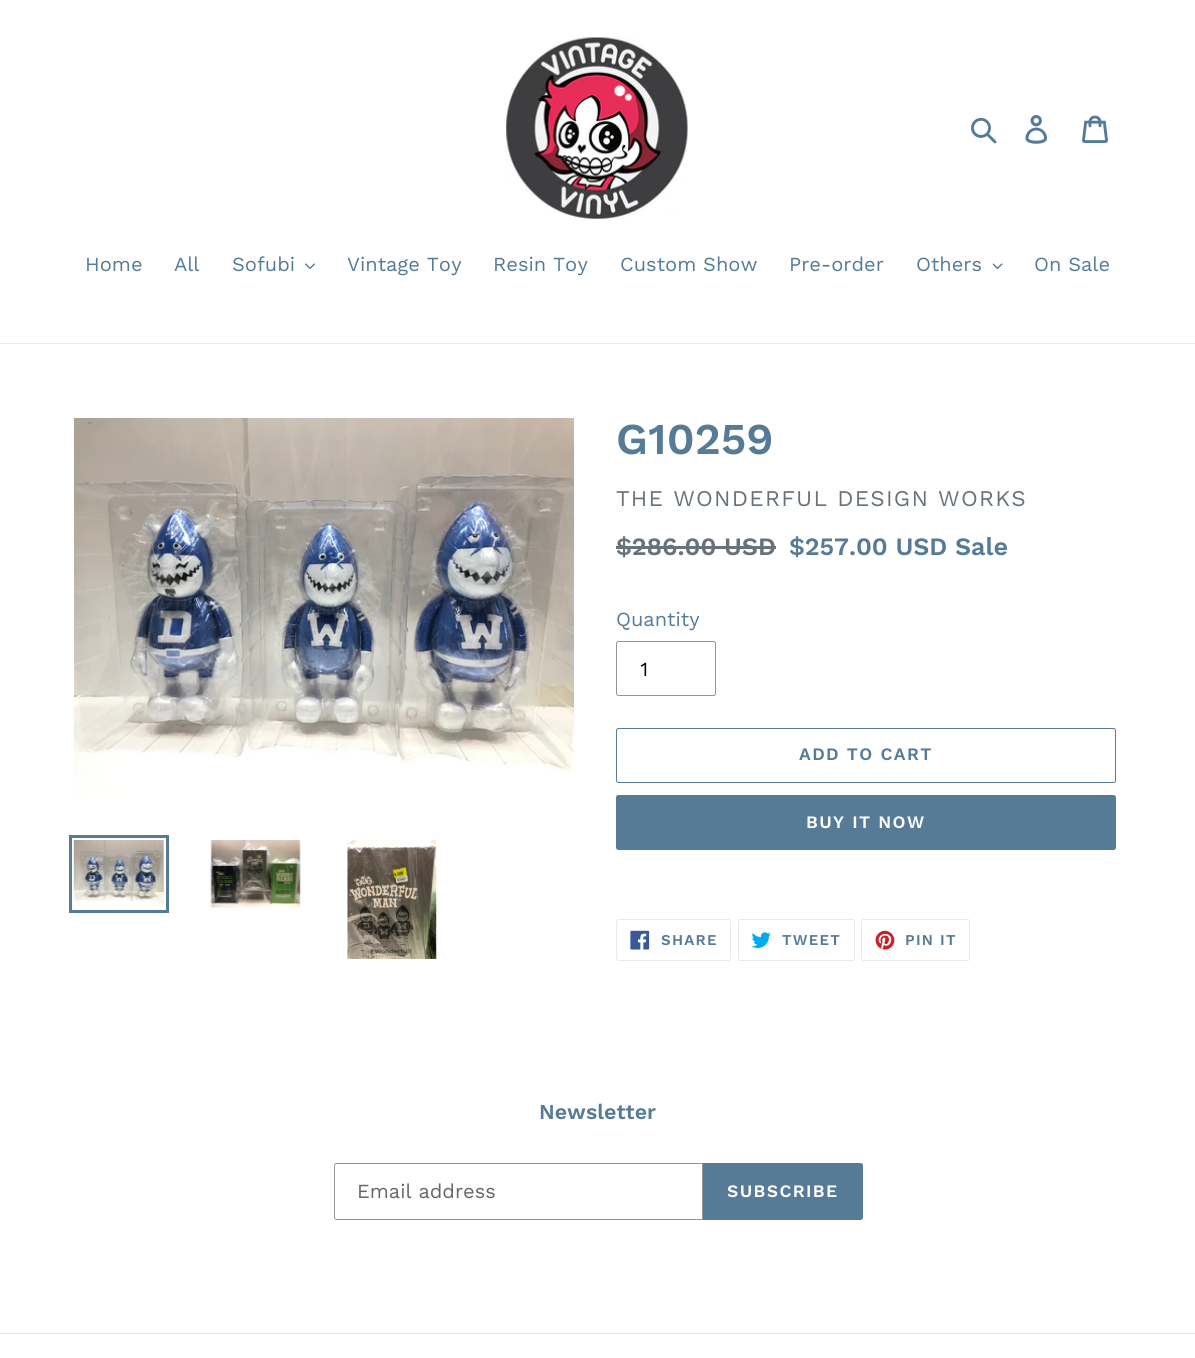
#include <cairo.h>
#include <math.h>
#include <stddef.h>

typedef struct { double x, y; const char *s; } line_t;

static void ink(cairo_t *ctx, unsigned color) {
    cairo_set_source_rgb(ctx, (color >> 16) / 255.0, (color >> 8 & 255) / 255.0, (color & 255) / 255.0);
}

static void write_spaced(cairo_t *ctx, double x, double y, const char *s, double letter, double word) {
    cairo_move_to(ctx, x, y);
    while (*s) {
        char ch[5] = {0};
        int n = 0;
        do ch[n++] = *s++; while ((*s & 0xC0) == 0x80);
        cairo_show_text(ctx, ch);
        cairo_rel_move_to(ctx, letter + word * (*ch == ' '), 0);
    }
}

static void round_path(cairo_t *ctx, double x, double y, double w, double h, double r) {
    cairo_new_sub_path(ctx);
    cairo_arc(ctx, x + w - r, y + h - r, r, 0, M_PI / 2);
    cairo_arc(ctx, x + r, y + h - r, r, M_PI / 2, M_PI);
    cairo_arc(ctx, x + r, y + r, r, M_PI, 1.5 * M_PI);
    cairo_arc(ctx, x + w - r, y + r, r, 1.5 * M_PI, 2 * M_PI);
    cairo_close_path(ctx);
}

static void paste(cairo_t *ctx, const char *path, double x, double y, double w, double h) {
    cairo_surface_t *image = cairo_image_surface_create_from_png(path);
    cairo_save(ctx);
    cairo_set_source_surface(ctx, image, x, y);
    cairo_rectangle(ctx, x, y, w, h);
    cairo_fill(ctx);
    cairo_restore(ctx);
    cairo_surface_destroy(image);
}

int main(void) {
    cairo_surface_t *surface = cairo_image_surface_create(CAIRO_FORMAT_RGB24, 1195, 1358);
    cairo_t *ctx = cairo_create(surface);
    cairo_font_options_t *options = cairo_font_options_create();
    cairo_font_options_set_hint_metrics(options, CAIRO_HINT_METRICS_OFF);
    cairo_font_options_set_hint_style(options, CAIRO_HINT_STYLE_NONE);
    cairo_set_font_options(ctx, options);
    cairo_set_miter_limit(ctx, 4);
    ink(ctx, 0xFFFFFF);
    cairo_paint(ctx);
    paste(ctx, "media/1.png", 506, 37, 182, 182);
    paste(ctx, "media/2.png", 971, 117, 26, 27);
    paste(ctx, "media/3.png", 1025, 115, 23, 29);
    paste(ctx, "media/4.png", 1082, 115, 26, 28);
    ink(ctx, 0xE8E9EB);
    cairo_rectangle(ctx, 0, 343, 1195, 1);
    cairo_fill(ctx);
    cairo_select_font_face(ctx, "Work Sans", CAIRO_FONT_SLANT_NORMAL, CAIRO_FONT_WEIGHT_NORMAL);
    cairo_set_font_size(ctx, 20);
    ink(ctx, 0x557B97);
    {
        static const line_t items[] = {
            {85, 271, "Home"},
            {174, 271, "All"},
            {232, 271, "Sofubi"},
        };
        for (size_t i = 0; i < sizeof items / sizeof *items; i++) {
            cairo_move_to(ctx, items[i].x, items[i].y);
            cairo_show_text(ctx, items[i].s);
        }
    }
    paste(ctx, "media/5.png", 305, 263, 10, 6);
    {
        static const line_t items[] = {
            {347, 271, "Vintage Toy"},
            {493, 271, "Resin Toy"},
            {620, 271, "Custom Show"},
            {789, 271, "Pre-order"},
            {916, 271, "Others"},
        };
        for (size_t i = 0; i < sizeof items / sizeof *items; i++) {
            cairo_move_to(ctx, items[i].x, items[i].y);
            cairo_show_text(ctx, items[i].s);
        }
    }
    paste(ctx, "media/6.png", 993, 263, 10, 6);
    cairo_move_to(ctx, 1034, 271);
    cairo_show_text(ctx, "On Sale");
    paste(ctx, "media/7.png", 74, 418, 500, 375);
    cairo_rectangle(ctx, 70.5, 836.5, 97, 75);
    cairo_set_line_width(ctx, 3);
    cairo_stroke(ctx);
    paste(ctx, "media/8.png", 73, 840, 91, 67);
    paste(ctx, "media/9.png", 210, 840, 91, 68);
    paste(ctx, "media/10.png", 347, 840, 90, 119);
    cairo_select_font_face(ctx, "Work Sans SemiBold", CAIRO_FONT_SLANT_NORMAL, CAIRO_FONT_WEIGHT_NORMAL);
    cairo_set_font_size(ctx, 44);
    cairo_move_to(ctx, 616, 454);
    cairo_show_text(ctx, "G10259");
    cairo_select_font_face(ctx, "Work Sans", CAIRO_FONT_SLANT_NORMAL, CAIRO_FONT_WEIGHT_NORMAL);
    cairo_set_font_size(ctx, 22.5);
    ink(ctx, 0x69727B);
    write_spaced(ctx, 616, 506, "THE WONDERFUL DESIGN WORKS", 1.25, 0);
    cairo_select_font_face(ctx, "Work Sans SemiBold", CAIRO_FONT_SLANT_NORMAL, CAIRO_FONT_WEIGHT_NORMAL);
    cairo_set_font_size(ctx, 25);
    cairo_move_to(ctx, 616, 555);
    cairo_show_text(ctx, "$286.00 USD");
    cairo_rectangle(ctx, 616, 546, 160, 3);
    cairo_fill(ctx);
    ink(ctx, 0x557B97);
    cairo_move_to(ctx, 789, 555);
    cairo_show_text(ctx, "$257.00 USD Sale");
    cairo_select_font_face(ctx, "Work Sans", CAIRO_FONT_SLANT_NORMAL, CAIRO_FONT_WEIGHT_NORMAL);
    cairo_set_font_size(ctx, 20);
    cairo_move_to(ctx, 616, 626);
    cairo_show_text(ctx, "Quantity");
    round_path(ctx, 616.5, 641.5, 99, 54, 2);
    ink(ctx, 0x949494);
    cairo_set_line_width(ctx, 1);
    cairo_stroke(ctx);
    ink(ctx, 0x000000);
    cairo_move_to(ctx, 640, 676);
    cairo_show_text(ctx, "1");
    round_path(ctx, 616.5, 728.5, 499, 54, 2);
    ink(ctx, 0x557B97);
    cairo_stroke(ctx);
    cairo_select_font_face(ctx, "Work Sans SemiBold", CAIRO_FONT_SLANT_NORMAL, CAIRO_FONT_WEIGHT_NORMAL);
    cairo_set_font_size(ctx, 17.5);
    write_spaced(ctx, 799, 760, "ADD TO CART", 1.4, 0);
    round_path(ctx, 616, 795, 500, 55, 2.5);
    cairo_fill(ctx);
    ink(ctx, 0xFFFFFF);
    write_spaced(ctx, 806, 828, "BUY IT NOW", 1.4, 0);
    round_path(ctx, 616.5, 919.5, 114, 41, 2);
    ink(ctx, 0xE8E9EB);
    cairo_stroke(ctx);
    paste(ctx, "media/11.png", 630, 930, 20, 20);
    cairo_set_font_size(ctx, 15);
    ink(ctx, 0x557B97);
    write_spaced(ctx, 661, 945, "SHARE", 1.25, 0);
    round_path(ctx, 738.5, 919.5, 116, 41, 2);
    ink(ctx, 0xE8E9EB);
    cairo_stroke(ctx);
    paste(ctx, "media/12.png", 751, 932, 20, 16);
    ink(ctx, 0x557B97);
    write_spaced(ctx, 782, 945, "TWEET", 1.25, 0);
    round_path(ctx, 861.5, 919.5, 108, 41, 2);
    ink(ctx, 0xE8E9EB);
    cairo_stroke(ctx);
    paste(ctx, "media/13.png", 875, 930, 20, 20);
    ink(ctx, 0x557B97);
    write_spaced(ctx, 905, 945, "PIN IT", 1.25, 0);
    cairo_set_font_size(ctx, 21.25);
    cairo_move_to(ctx, 539, 1119);
    cairo_show_text(ctx, "Newsletter");
    cairo_new_path(ctx);
    cairo_move_to(ctx, 336.5, 1163.5);
    cairo_line_to(ctx, 702.5, 1163.5);
    cairo_line_to(ctx, 702.5, 1219.5);
    cairo_line_to(ctx, 336.5, 1219.5);
    cairo_curve_to(ctx, 335.5, 1219.5, 334.5, 1218.5, 334.5, 1217.5);
    cairo_line_to(ctx, 334.5, 1165.5);
    cairo_curve_to(ctx, 334.5, 1164.5, 335.5, 1163.5, 336.5, 1163.5);
    cairo_close_path(ctx);
    ink(ctx, 0x949494);
    cairo_stroke(ctx);
    cairo_select_font_face(ctx, "Work Sans", CAIRO_FONT_SLANT_NORMAL, CAIRO_FONT_WEIGHT_NORMAL);
    cairo_set_font_size(ctx, 20);
    ink(ctx, 0x666666);
    cairo_move_to(ctx, 357, 1198);
    cairo_show_text(ctx, "Email address");
    ink(ctx, 0x557B97);
    cairo_new_path(ctx);
    cairo_move_to(ctx, 703, 1163);
    cairo_line_to(ctx, 860.5, 1163);
    cairo_curve_to(ctx, 862, 1163, 863, 1164, 863, 1165.5);
    cairo_line_to(ctx, 863, 1217.5);
    cairo_curve_to(ctx, 863, 1219, 862, 1220, 860.5, 1220);
    cairo_line_to(ctx, 703, 1220);
    cairo_close_path(ctx);
    cairo_fill(ctx);
    cairo_select_font_face(ctx, "Work Sans SemiBold", CAIRO_FONT_SLANT_NORMAL, CAIRO_FONT_WEIGHT_NORMAL);
    cairo_set_font_size(ctx, 17.5);
    ink(ctx, 0xFFFFFF);
    write_spaced(ctx, 727, 1197, "SUBSCRIBE", 1.4, 0);
    ink(ctx, 0xE6E6E6);
    cairo_rectangle(ctx, 0, 1333, 1195, 1);
    cairo_fill(ctx);
    cairo_surface_write_to_png(surface, "image.png");
    cairo_font_options_destroy(options);
    cairo_destroy(ctx);
    cairo_surface_destroy(surface);
    return 0;
}
